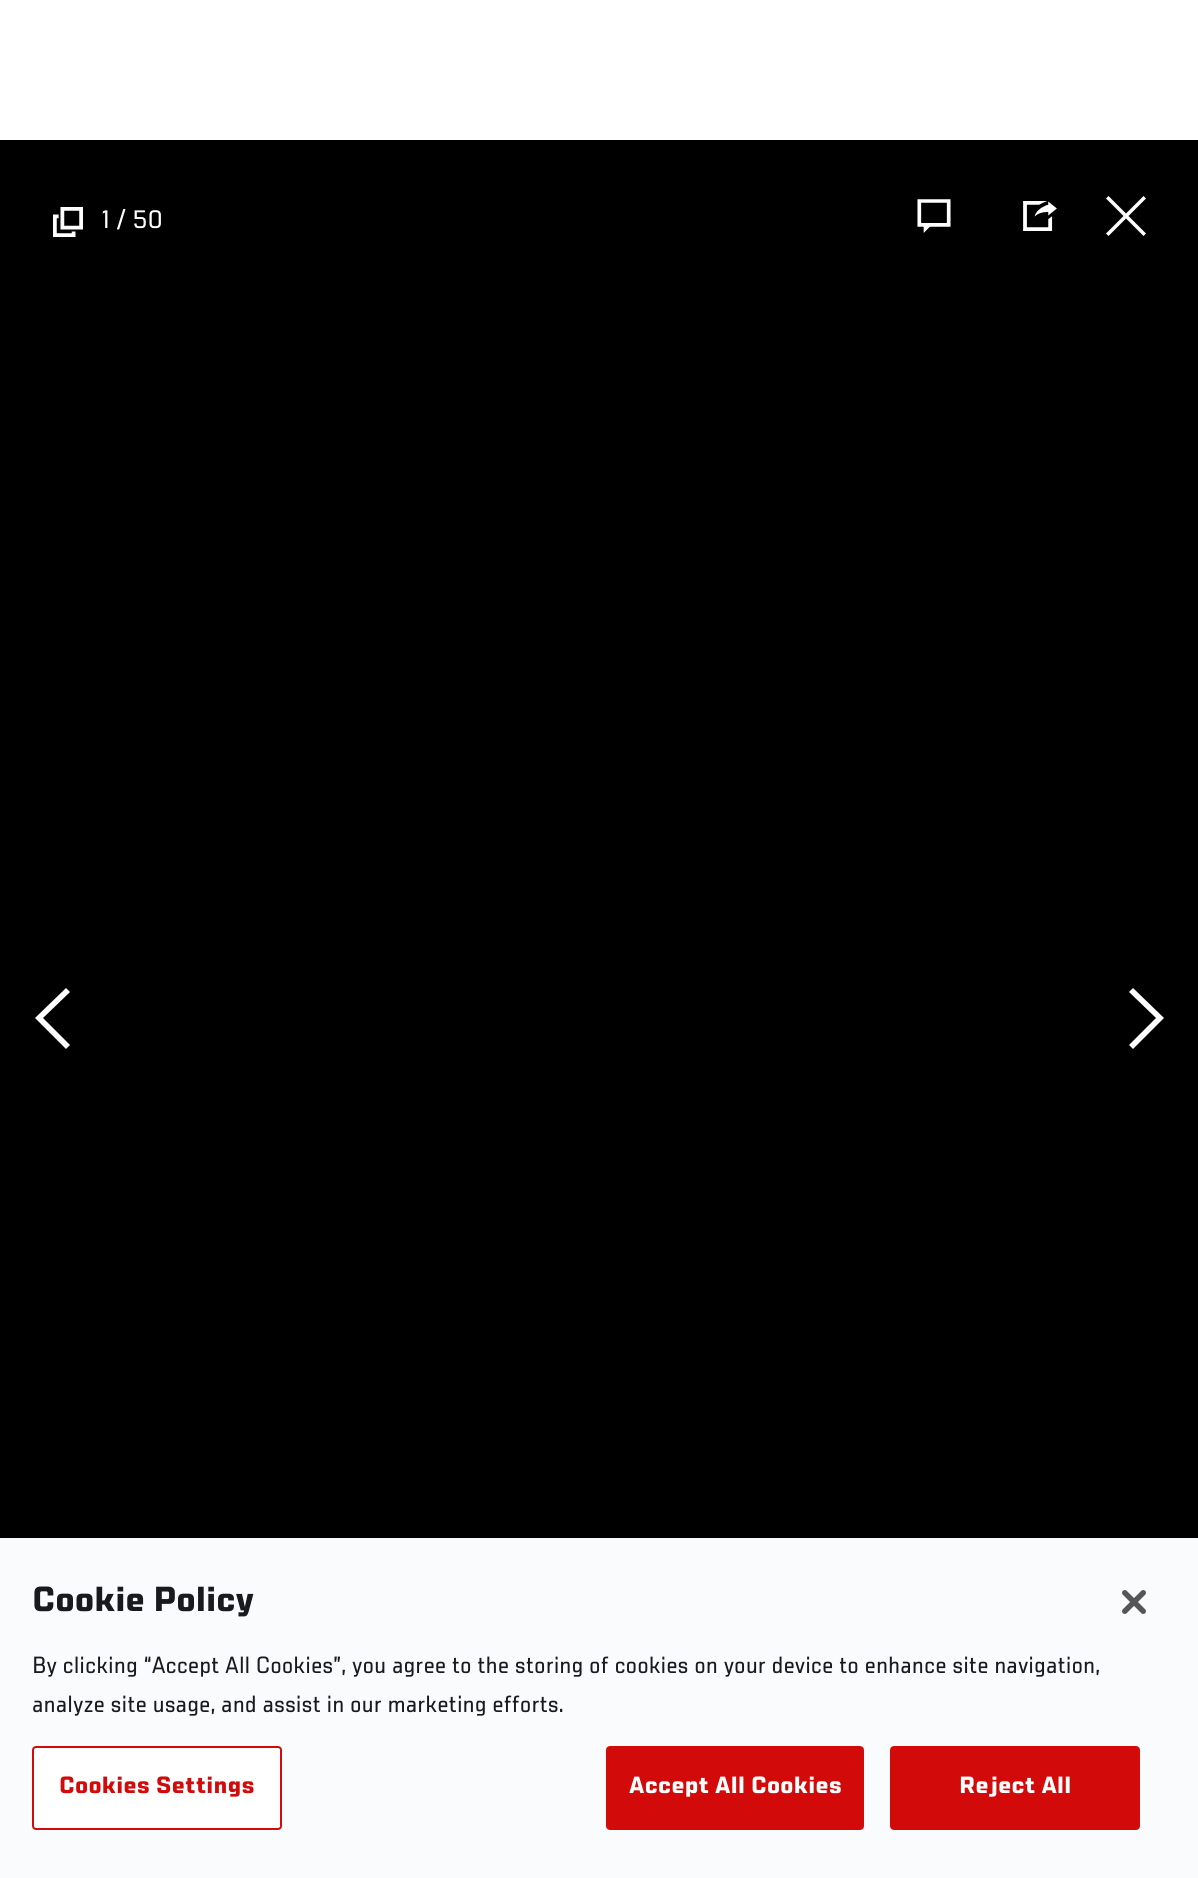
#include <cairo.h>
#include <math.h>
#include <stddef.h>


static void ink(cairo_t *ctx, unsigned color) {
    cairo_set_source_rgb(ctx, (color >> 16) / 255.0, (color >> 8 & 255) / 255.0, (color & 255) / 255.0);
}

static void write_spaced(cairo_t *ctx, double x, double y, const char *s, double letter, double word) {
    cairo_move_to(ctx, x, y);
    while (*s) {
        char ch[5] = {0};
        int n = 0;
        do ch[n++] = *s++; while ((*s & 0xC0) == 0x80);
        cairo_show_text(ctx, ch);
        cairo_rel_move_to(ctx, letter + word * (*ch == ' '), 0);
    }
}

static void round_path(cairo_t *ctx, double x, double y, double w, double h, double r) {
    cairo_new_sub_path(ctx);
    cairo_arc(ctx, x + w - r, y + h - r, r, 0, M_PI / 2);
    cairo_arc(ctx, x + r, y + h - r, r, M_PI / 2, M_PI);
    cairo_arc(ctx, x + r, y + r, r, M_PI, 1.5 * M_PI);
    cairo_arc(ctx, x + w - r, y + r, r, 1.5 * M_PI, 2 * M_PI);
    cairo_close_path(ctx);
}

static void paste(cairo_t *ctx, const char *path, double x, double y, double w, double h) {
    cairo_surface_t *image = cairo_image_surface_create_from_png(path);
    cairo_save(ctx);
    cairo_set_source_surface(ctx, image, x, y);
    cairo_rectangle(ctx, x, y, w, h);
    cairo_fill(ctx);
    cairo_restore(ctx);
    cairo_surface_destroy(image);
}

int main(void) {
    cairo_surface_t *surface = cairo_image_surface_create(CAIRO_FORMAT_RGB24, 1198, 1878);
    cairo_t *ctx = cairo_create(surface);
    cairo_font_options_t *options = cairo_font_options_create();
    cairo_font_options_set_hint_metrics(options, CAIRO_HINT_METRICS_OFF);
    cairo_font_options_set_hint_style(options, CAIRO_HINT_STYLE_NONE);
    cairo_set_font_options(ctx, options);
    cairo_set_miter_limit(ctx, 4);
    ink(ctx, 0xFFFFFF);
    cairo_paint(ctx);
    ink(ctx, 0x000000);
    cairo_rectangle(ctx, 0, 140, 1198, 1398);
    cairo_fill(ctx);
    ink(ctx, 0xFFFFFF);
    cairo_new_path(ctx);
    cairo_move_to(ctx, 70, 1045);
    cairo_line_to(ctx, 66, 1049);
    cairo_line_to(ctx, 35, 1018);
    cairo_line_to(ctx, 66, 988);
    cairo_line_to(ctx, 70, 992);
    cairo_line_to(ctx, 43, 1018);
    cairo_close_path(ctx);
    cairo_fill(ctx);
    cairo_new_path(ctx);
    cairo_move_to(ctx, 1156, 1018);
    cairo_line_to(ctx, 1129, 992);
    cairo_line_to(ctx, 1133, 988);
    cairo_line_to(ctx, 1164, 1018);
    cairo_line_to(ctx, 1133, 1049);
    cairo_line_to(ctx, 1129, 1045);
    cairo_close_path(ctx);
    cairo_fill(ctx);
    paste(ctx, "media/1.png", 53, 207, 30, 30);
    cairo_select_font_face(ctx, "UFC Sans", CAIRO_FONT_SLANT_NORMAL, CAIRO_FONT_WEIGHT_NORMAL);
    cairo_set_font_size(ctx, 28);
    cairo_move_to(ctx, 102, 228);
    cairo_show_text(ctx, "1 / 50");
    paste(ctx, "media/2.png", 917, 199, 34, 34);
    paste(ctx, "media/3.png", 1023, 201, 34, 30);
    cairo_new_path(ctx);
    cairo_move_to(ctx, 1143.5, 196);
    cairo_line_to(ctx, 1146, 198.5);
    cairo_line_to(ctx, 1128.5, 216);
    cairo_line_to(ctx, 1146, 233.5);
    cairo_line_to(ctx, 1143.5, 236);
    cairo_line_to(ctx, 1126, 218.5);
    cairo_line_to(ctx, 1108.5, 236);
    cairo_line_to(ctx, 1106, 233.5);
    cairo_line_to(ctx, 1123.5, 216);
    cairo_line_to(ctx, 1106, 198.5);
    cairo_line_to(ctx, 1108.5, 196);
    cairo_line_to(ctx, 1126, 213.5);
    cairo_close_path(ctx);
    cairo_fill(ctx);
    ink(ctx, 0xFAFBFD);
    cairo_rectangle(ctx, 0, 1538, 1198, 340);
    cairo_fill(ctx);
    cairo_select_font_face(ctx, "UFC Sans", CAIRO_FONT_SLANT_NORMAL, CAIRO_FONT_WEIGHT_BOLD);
    cairo_set_font_size(ctx, 38.5);
    ink(ctx, 0x19191E);
    cairo_move_to(ctx, 32, 1611);
    cairo_show_text(ctx, "Cookie Policy");
    cairo_select_font_face(ctx, "UFC Sans", CAIRO_FONT_SLANT_NORMAL, CAIRO_FONT_WEIGHT_NORMAL);
    cairo_set_font_size(ctx, 26);
    cairo_move_to(ctx, 32, 1673);
    cairo_show_text(ctx, "By clicking “Accept All Cookies”, you agree to the storing of cookies on your device to enhance site navigation,");
    cairo_move_to(ctx, 32, 1712);
    cairo_show_text(ctx, "analyze site usage, and assist in our marketing efforts.");
    ink(ctx, 0xFFFFFF);
    round_path(ctx, 33, 1747, 248, 82, 3);
    cairo_fill_preserve(ctx);
    ink(ctx, 0xD20A0A);
    cairo_stroke(ctx);
    cairo_select_font_face(ctx, "UFC Sans", CAIRO_FONT_SLANT_NORMAL, CAIRO_FONT_WEIGHT_BOLD);
    write_spaced(ctx, 59, 1793, "Cookies Settings", 0.25, 0);
    round_path(ctx, 607, 1747, 256, 82, 3);
    cairo_fill_preserve(ctx);
    cairo_stroke(ctx);
    ink(ctx, 0xFFFFFF);
    write_spaced(ctx, 629, 1793, "Accept All Cookies", 0.25, 0);
    ink(ctx, 0xD20A0A);
    round_path(ctx, 891, 1747, 248, 82, 3);
    cairo_fill_preserve(ctx);
    cairo_stroke(ctx);
    ink(ctx, 0xFFFFFF);
    write_spaced(ctx, 959, 1793, "Reject All", 0.25, 0);
    paste(ctx, "media/4.png", 1122, 1590, 24, 24);
    cairo_surface_write_to_png(surface, "image.png");
    cairo_font_options_destroy(options);
    cairo_destroy(ctx);
    cairo_surface_destroy(surface);
    return 0;
}
